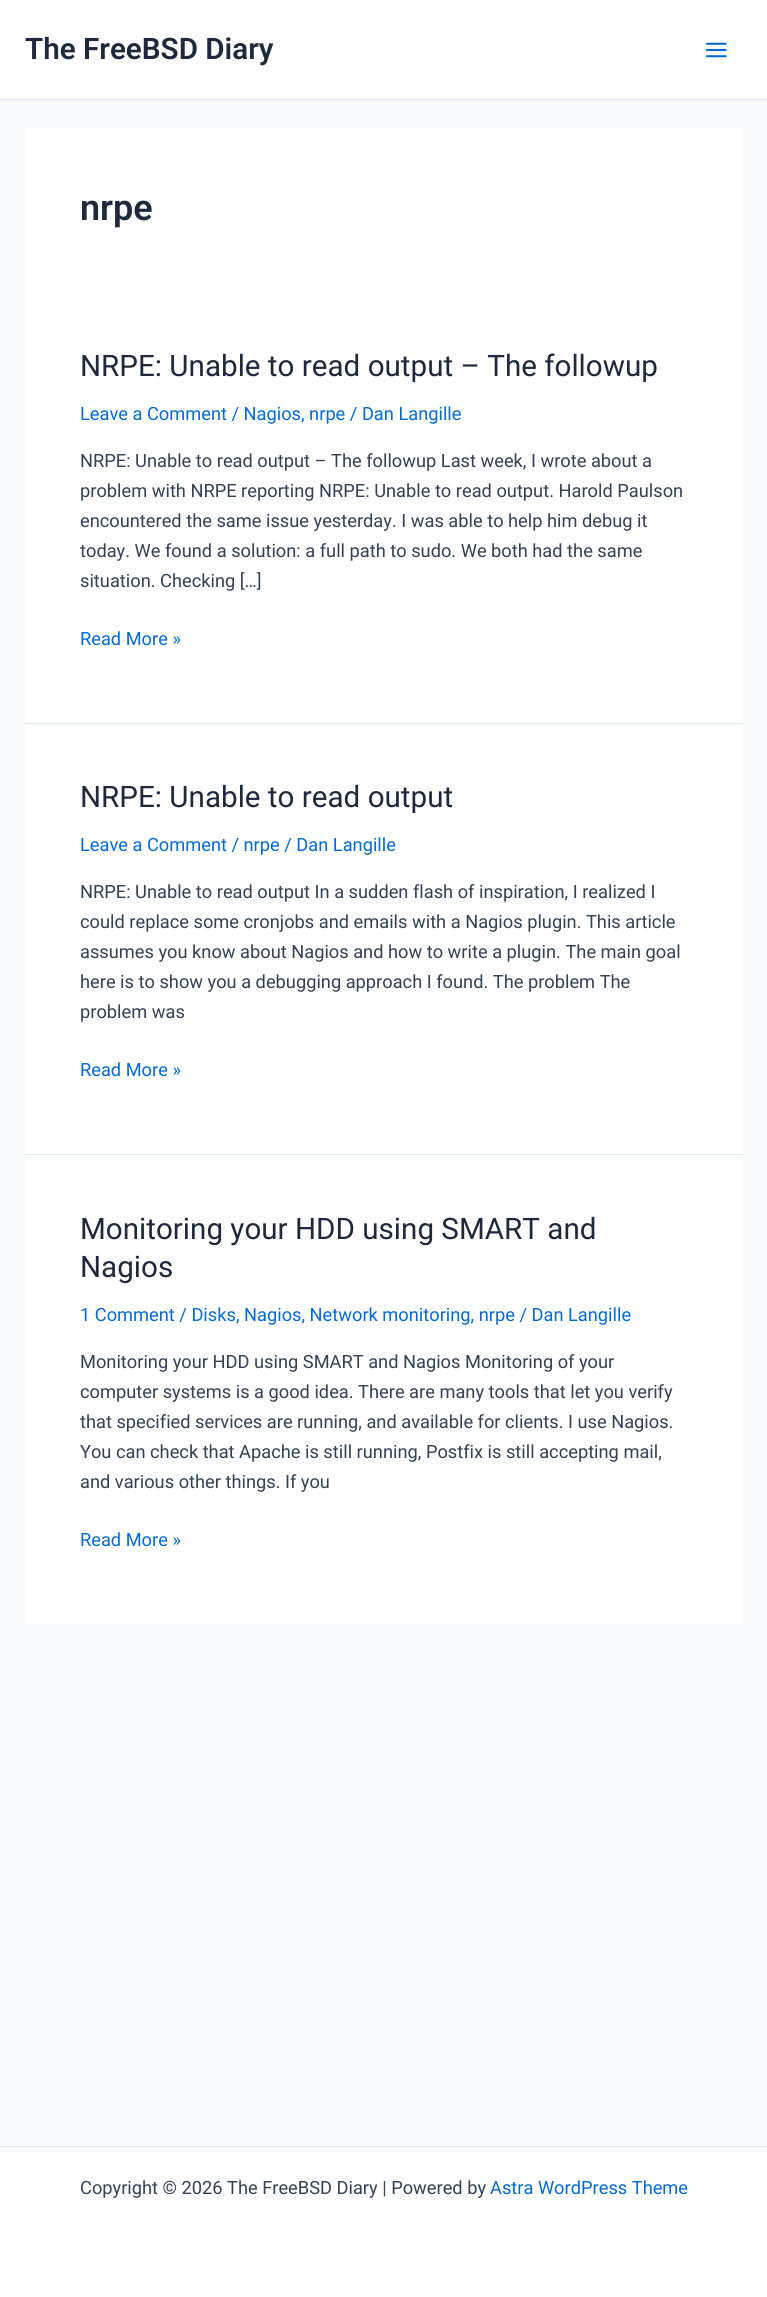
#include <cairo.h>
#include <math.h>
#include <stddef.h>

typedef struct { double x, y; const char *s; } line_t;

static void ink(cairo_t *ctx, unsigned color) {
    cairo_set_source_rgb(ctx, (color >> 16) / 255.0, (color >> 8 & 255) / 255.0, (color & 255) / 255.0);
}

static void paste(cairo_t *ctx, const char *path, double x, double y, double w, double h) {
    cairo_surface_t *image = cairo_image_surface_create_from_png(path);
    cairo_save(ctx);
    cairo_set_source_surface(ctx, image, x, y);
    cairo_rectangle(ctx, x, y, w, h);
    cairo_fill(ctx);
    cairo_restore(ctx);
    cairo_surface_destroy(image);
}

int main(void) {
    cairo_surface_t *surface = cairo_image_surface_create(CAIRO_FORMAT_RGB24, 767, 2297);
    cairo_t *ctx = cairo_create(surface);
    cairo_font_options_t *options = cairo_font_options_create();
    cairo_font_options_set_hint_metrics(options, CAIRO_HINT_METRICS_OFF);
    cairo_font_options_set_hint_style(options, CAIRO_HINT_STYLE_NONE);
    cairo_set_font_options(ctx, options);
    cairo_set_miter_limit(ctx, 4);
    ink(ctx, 0xF9FAFB);
    cairo_paint(ctx);
    ink(ctx, 0xFFFFFF);
    cairo_rectangle(ctx, 0, 0, 767, 99);
    cairo_fill(ctx);
    ink(ctx, 0xE2E8F0);
    cairo_rectangle(ctx, 0, 99, 767, 1);
    cairo_fill(ctx);
    cairo_select_font_face(ctx, "Roboto SemiBold", CAIRO_FONT_SLANT_NORMAL, CAIRO_FONT_WEIGHT_NORMAL);
    cairo_set_font_size(ctx, 29.6);
    ink(ctx, 0x1E293B);
    cairo_move_to(ctx, 25, 59);
    cairo_show_text(ctx, "The FreeBSD Diary");
    paste(ctx, "media/1.png", 705, 42, 22, 16);
    ink(ctx, 0xFFFFFF);
    cairo_rectangle(ctx, 25, 128, 718, 595);
    cairo_fill(ctx);
    cairo_set_font_size(ctx, 36);
    ink(ctx, 0x1E293B);
    cairo_move_to(ctx, 80, 220);
    cairo_show_text(ctx, "nrpe");
    ink(ctx, 0xE2E8F0);
    cairo_rectangle(ctx, 25, 723, 718, 1);
    cairo_fill(ctx);
    cairo_select_font_face(ctx, "Roboto", CAIRO_FONT_SLANT_NORMAL, CAIRO_FONT_WEIGHT_NORMAL);
    cairo_set_font_size(ctx, 29.6);
    ink(ctx, 0x1E293B);
    cairo_move_to(ctx, 80, 376);
    cairo_show_text(ctx, "NRPE: Unable to read output – The followup");
    cairo_set_font_size(ctx, 18.25);
    ink(ctx, 0x046BD2);
    cairo_move_to(ctx, 80, 420);
    cairo_show_text(ctx, "Leave a Comment / Nagios, nrpe / Dan Langille");
    ink(ctx, 0x334155);
    {
        static const line_t items[] = {
            {80, 467, "NRPE: Unable to read output – The followup Last week, I wrote about a"},
            {80, 497, "problem with NRPE reporting NRPE: Unable to read output. Harold Paulson"},
            {80, 527, "encountered the same issue yesterday. I was able to help him debug it"},
            {80, 557, "today. We found a solution: a full path to sudo. We both had the same"},
            {80, 587, "situation. Checking […]"},
        };
        for (size_t i = 0; i < sizeof items / sizeof *items; i++) {
            cairo_move_to(ctx, items[i].x, items[i].y);
            cairo_show_text(ctx, items[i].s);
        }
    }
    ink(ctx, 0x046BD2);
    cairo_move_to(ctx, 80, 645);
    cairo_show_text(ctx, "Read More »");
    ink(ctx, 0xFFFFFF);
    cairo_rectangle(ctx, 25, 724, 718, 430);
    cairo_fill(ctx);
    ink(ctx, 0xE2E8F0);
    cairo_rectangle(ctx, 25, 1154, 718, 1);
    cairo_fill(ctx);
    cairo_set_font_size(ctx, 29.6);
    ink(ctx, 0x1E293B);
    cairo_move_to(ctx, 80, 807);
    cairo_show_text(ctx, "NRPE: Unable to read output");
    cairo_set_font_size(ctx, 18.25);
    ink(ctx, 0x046BD2);
    cairo_move_to(ctx, 80, 851);
    cairo_show_text(ctx, "Leave a Comment / nrpe / Dan Langille");
    ink(ctx, 0x334155);
    {
        static const line_t items[] = {
            {80, 898, "NRPE: Unable to read output In a sudden flash of inspiration, I realized I"},
            {80, 928, "could replace some cronjobs and emails with a Nagios plugin. This article"},
            {80, 958, "assumes you know about Nagios and how to write a plugin. The main goal"},
            {80, 988, "here is to show you a debugging approach I found. The problem The"},
            {80, 1018, "problem was"},
        };
        for (size_t i = 0; i < sizeof items / sizeof *items; i++) {
            cairo_move_to(ctx, items[i].x, items[i].y);
            cairo_show_text(ctx, items[i].s);
        }
    }
    ink(ctx, 0x046BD2);
    cairo_move_to(ctx, 80, 1076);
    cairo_show_text(ctx, "Read More »");
    ink(ctx, 0xFFFFFF);
    cairo_rectangle(ctx, 25, 1155, 718, 469);
    cairo_fill(ctx);
    cairo_set_font_size(ctx, 29.6);
    ink(ctx, 0x1E293B);
    cairo_move_to(ctx, 80, 1239);
    cairo_show_text(ctx, "Monitoring your HDD using SMART and");
    cairo_move_to(ctx, 80, 1277);
    cairo_show_text(ctx, "Nagios");
    cairo_set_font_size(ctx, 18.25);
    ink(ctx, 0x046BD2);
    cairo_move_to(ctx, 80, 1321);
    cairo_show_text(ctx, "1 Comment / Disks, Nagios, Network monitoring, nrpe / Dan Langille");
    ink(ctx, 0x334155);
    {
        static const line_t items[] = {
            {80, 1368, "Monitoring your HDD using SMART and Nagios Monitoring of your"},
            {80, 1398, "computer systems is a good idea. There are many tools that let you verify"},
            {80, 1428, "that specified services are running, and available for clients. I use Nagios."},
            {80, 1458, "You can check that Apache is still running, Postfix is still accepting mail,"},
            {80, 1488, "and various other things. If you"},
        };
        for (size_t i = 0; i < sizeof items / sizeof *items; i++) {
            cairo_move_to(ctx, items[i].x, items[i].y);
            cairo_show_text(ctx, items[i].s);
        }
    }
    ink(ctx, 0x046BD2);
    cairo_move_to(ctx, 80, 1546);
    cairo_show_text(ctx, "Read More »");
    ink(ctx, 0xFFFFFF);
    cairo_rectangle(ctx, 0, 2148, 767, 149);
    cairo_fill(ctx);
    ink(ctx, 0xE2E8F0);
    cairo_rectangle(ctx, 0, 2146, 767, 1);
    cairo_fill(ctx);
    ink(ctx, 0x334155);
    cairo_move_to(ctx, 80, 2194);
    cairo_show_text(ctx, "Copyright © 2026 The FreeBSD Diary | Powered by");
    ink(ctx, 0x046BD2);
    cairo_move_to(ctx, 490, 2194);
    cairo_show_text(ctx, "Astra WordPress Theme");
    cairo_surface_write_to_png(surface, "image.png");
    cairo_font_options_destroy(options);
    cairo_destroy(ctx);
    cairo_surface_destroy(surface);
    return 0;
}
